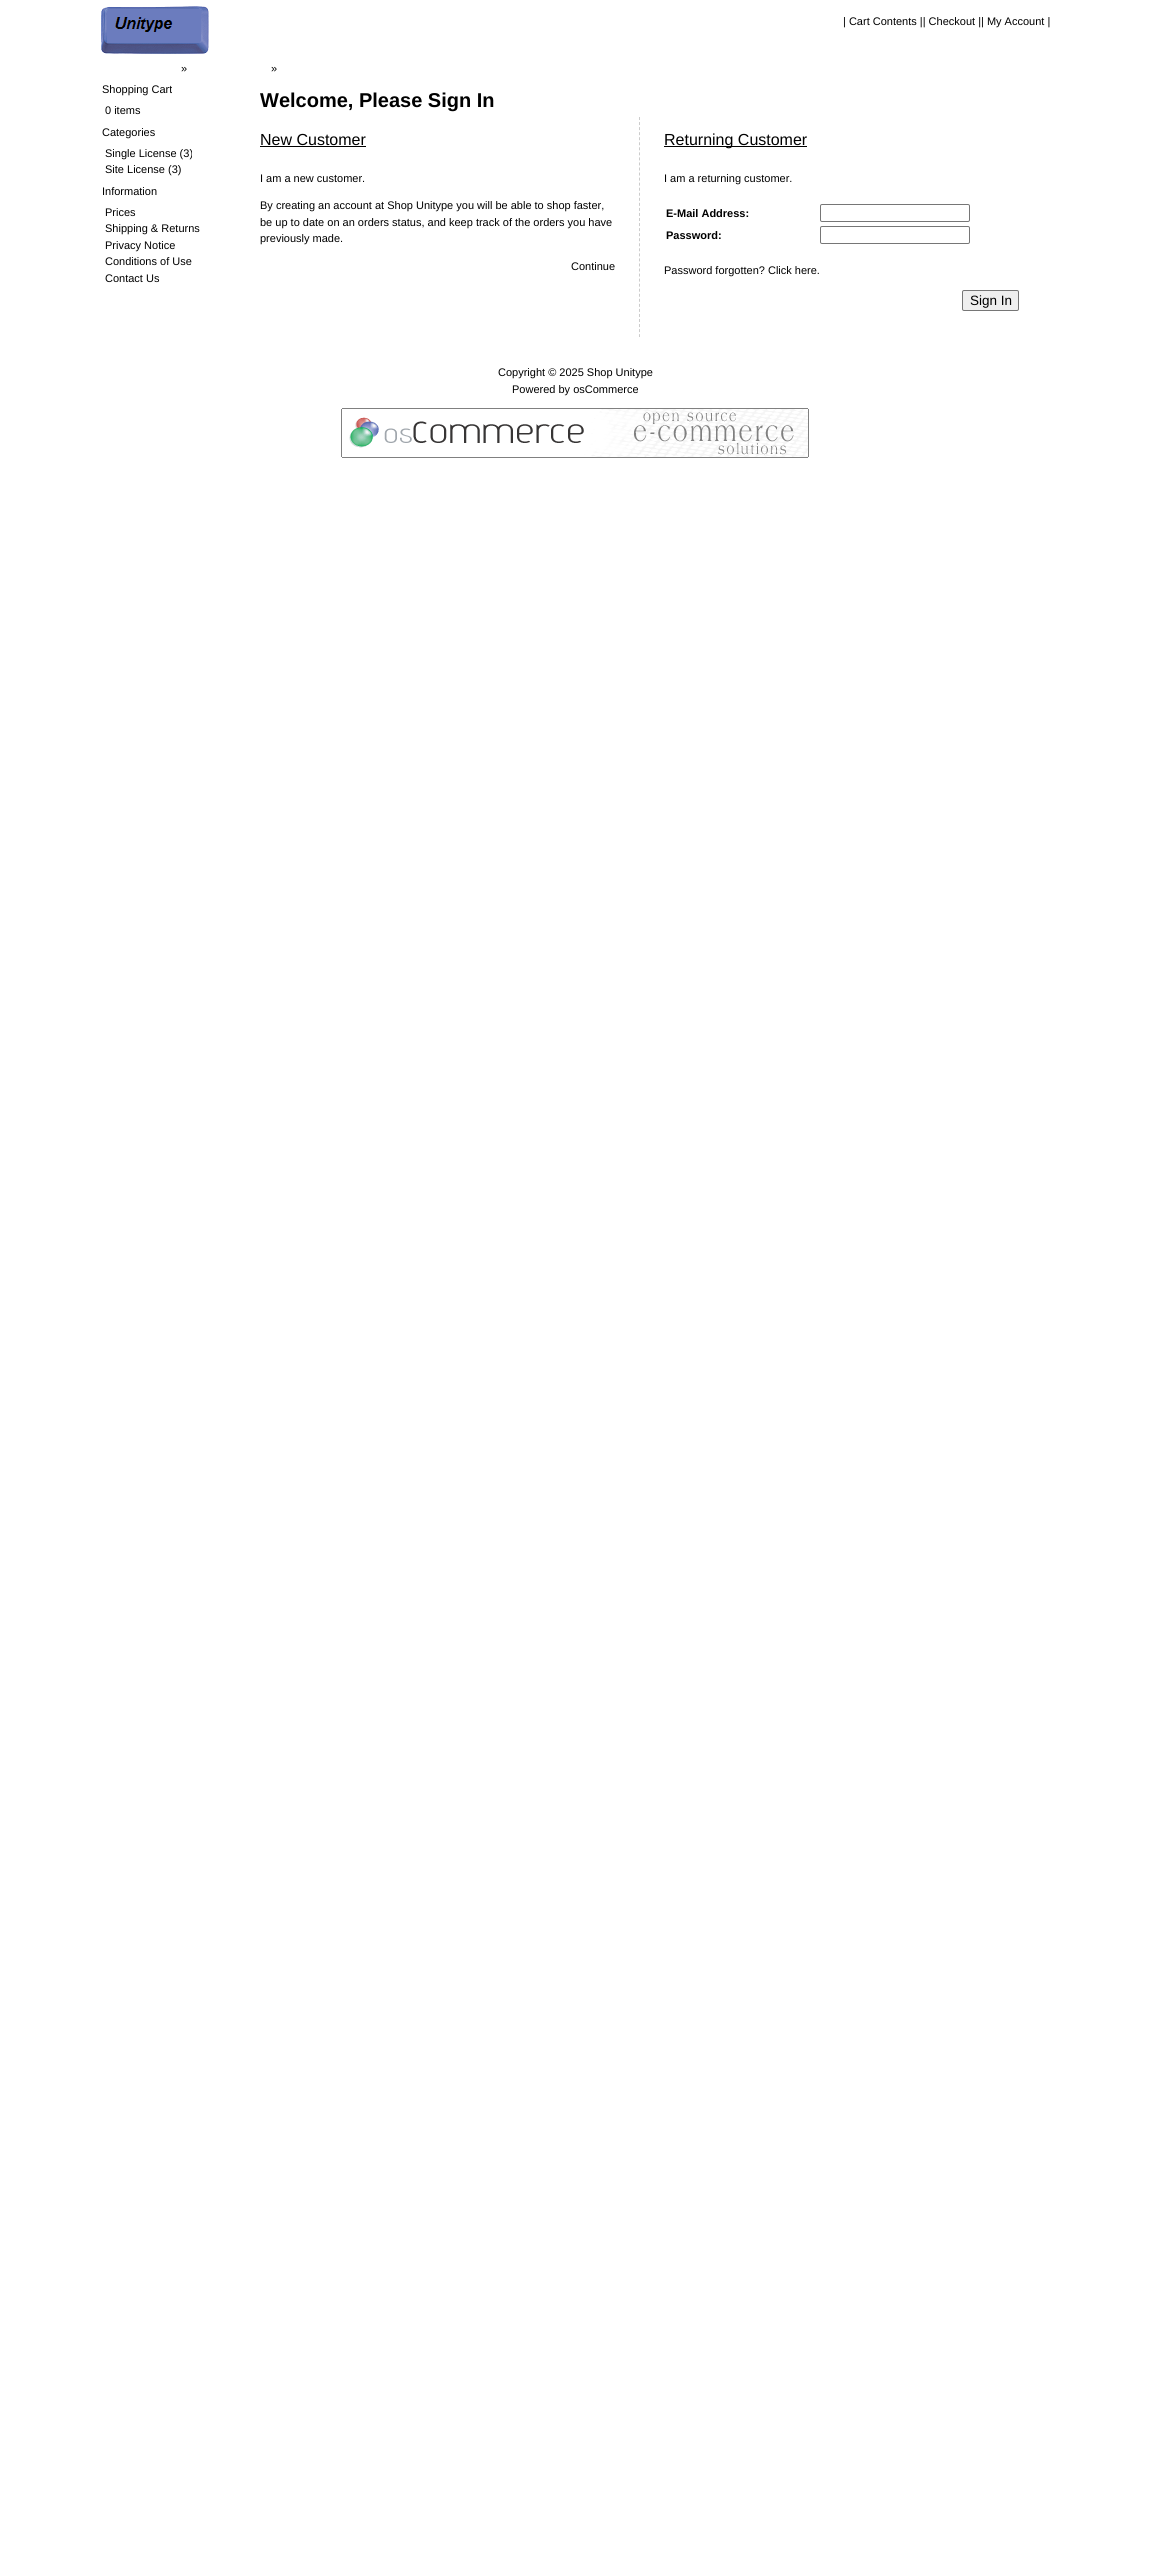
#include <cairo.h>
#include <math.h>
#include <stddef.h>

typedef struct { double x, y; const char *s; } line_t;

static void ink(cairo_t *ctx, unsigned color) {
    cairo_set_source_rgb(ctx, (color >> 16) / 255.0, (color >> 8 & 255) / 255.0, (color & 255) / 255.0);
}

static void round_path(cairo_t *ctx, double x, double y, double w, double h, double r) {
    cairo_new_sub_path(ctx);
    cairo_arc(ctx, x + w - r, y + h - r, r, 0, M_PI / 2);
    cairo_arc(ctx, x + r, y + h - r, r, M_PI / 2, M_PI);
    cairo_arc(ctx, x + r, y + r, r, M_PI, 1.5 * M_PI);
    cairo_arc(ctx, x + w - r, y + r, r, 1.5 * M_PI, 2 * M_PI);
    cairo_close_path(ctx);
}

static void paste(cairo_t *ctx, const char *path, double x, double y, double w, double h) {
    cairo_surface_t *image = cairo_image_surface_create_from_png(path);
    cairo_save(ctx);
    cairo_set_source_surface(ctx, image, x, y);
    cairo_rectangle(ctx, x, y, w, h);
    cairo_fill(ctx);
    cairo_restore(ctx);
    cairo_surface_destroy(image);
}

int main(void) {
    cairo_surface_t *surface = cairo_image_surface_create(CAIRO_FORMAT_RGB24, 1150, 2556);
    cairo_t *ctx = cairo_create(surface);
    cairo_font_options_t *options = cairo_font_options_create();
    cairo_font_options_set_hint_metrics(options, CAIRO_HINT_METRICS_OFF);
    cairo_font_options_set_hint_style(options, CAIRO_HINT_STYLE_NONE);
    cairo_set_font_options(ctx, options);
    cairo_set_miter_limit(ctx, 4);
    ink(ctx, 0xFFFFFF);
    cairo_paint(ctx);
    paste(ctx, "media/1.png", 101, 6, 108, 48);
    cairo_select_font_face(ctx, "Liberation Sans", CAIRO_FONT_SLANT_NORMAL, CAIRO_FONT_WEIGHT_NORMAL);
    cairo_set_font_size(ctx, 11);
    ink(ctx, 0x000000);
    {
        static const line_t items[] = {
            {843, 25, "| Cart Contents || Checkout || My Account |"},
            {181, 72, "»"},
            {271, 72, "»"},
            {102, 93, "Shopping Cart"},
            {105, 114, "0 items"},
            {102, 136, "Categories"},
            {105, 157, "Single License (3)"},
            {105, 173, "Site License (3)"},
            {102, 195, "Information"},
            {105, 216, "Prices"},
            {105, 232, "Shipping & Returns"},
            {105, 249, "Privacy Notice"},
            {105, 265, "Conditions of Use"},
            {105, 282, "Contact Us"},
        };
        for (size_t i = 0; i < sizeof items / sizeof *items; i++) {
            cairo_move_to(ctx, items[i].x, items[i].y);
            cairo_show_text(ctx, items[i].s);
        }
    }
    cairo_select_font_face(ctx, "Liberation Sans", CAIRO_FONT_SLANT_NORMAL, CAIRO_FONT_WEIGHT_BOLD);
    cairo_set_font_size(ctx, 20);
    cairo_move_to(ctx, 260, 107);
    cairo_show_text(ctx, "Welcome, Please Sign In");
    cairo_select_font_face(ctx, "Liberation Sans", CAIRO_FONT_SLANT_NORMAL, CAIRO_FONT_WEIGHT_NORMAL);
    cairo_set_font_size(ctx, 16);
    cairo_move_to(ctx, 260, 145);
    cairo_show_text(ctx, "New Customer");
    cairo_rectangle(ctx, 260, 146, 106, 1);
    cairo_fill(ctx);
    cairo_set_font_size(ctx, 11);
    {
        static const line_t items[] = {
            {260, 182, "I am a new customer."},
            {260, 209, "By creating an account at Shop Unitype you will be able to shop faster,"},
            {260, 226, "be up to date on an orders status, and keep track of the orders you have"},
            {260, 242, "previously made."},
            {571, 270, "Continue"},
        };
        for (size_t i = 0; i < sizeof items / sizeof *items; i++) {
            cairo_move_to(ctx, items[i].x, items[i].y);
            cairo_show_text(ctx, items[i].s);
        }
    }
    cairo_new_path(ctx);
    cairo_move_to(ctx, 639.5, 117);
    cairo_line_to(ctx, 639.5, 337);
    ink(ctx, 0xCCCCCC);
    cairo_set_line_width(ctx, 1);
    cairo_set_dash(ctx, (double[]){3, 2.05}, 2, 0);
    cairo_stroke(ctx);
    ink(ctx, 0x000000);
    cairo_rectangle(ctx, 664, 146, 143, 1);
    cairo_fill(ctx);
    cairo_set_font_size(ctx, 16);
    cairo_move_to(ctx, 664, 145);
    cairo_show_text(ctx, "Returning Customer");
    cairo_set_font_size(ctx, 11);
    cairo_move_to(ctx, 664, 182);
    cairo_show_text(ctx, "I am a returning customer.");
    cairo_select_font_face(ctx, "Liberation Sans", CAIRO_FONT_SLANT_NORMAL, CAIRO_FONT_WEIGHT_BOLD);
    cairo_move_to(ctx, 666, 217);
    cairo_show_text(ctx, "E-Mail Address:");
    round_path(ctx, 820.5, 204.5, 149, 17, 1.5);
    ink(ctx, 0x767676);
    cairo_set_dash(ctx, NULL, 0, 0);
    cairo_stroke(ctx);
    ink(ctx, 0x000000);
    cairo_move_to(ctx, 666, 239);
    cairo_show_text(ctx, "Password:");
    round_path(ctx, 820.5, 226.5, 149, 17, 1.5);
    ink(ctx, 0x767676);
    cairo_stroke(ctx);
    cairo_select_font_face(ctx, "Liberation Sans", CAIRO_FONT_SLANT_NORMAL, CAIRO_FONT_WEIGHT_NORMAL);
    ink(ctx, 0x000000);
    cairo_move_to(ctx, 664, 274);
    cairo_show_text(ctx, "Password forgotten? Click here.");
    ink(ctx, 0xEFEFEF);
    round_path(ctx, 962.5, 290.5, 56, 20, 1.5);
    cairo_fill_preserve(ctx);
    ink(ctx, 0x767676);
    cairo_stroke(ctx);
    cairo_set_font_size(ctx, 13.5);
    ink(ctx, 0x000000);
    cairo_move_to(ctx, 970, 305);
    cairo_show_text(ctx, "Sign In");
    cairo_set_font_size(ctx, 11);
    cairo_move_to(ctx, 498, 376);
    cairo_show_text(ctx, "Copyright © 2025 Shop Unitype");
    cairo_move_to(ctx, 512, 393);
    cairo_show_text(ctx, "Powered by osCommerce");
    paste(ctx, "media/2.png", 341, 408, 468, 50);
    cairo_surface_write_to_png(surface, "image.png");
    cairo_font_options_destroy(options);
    cairo_destroy(ctx);
    cairo_surface_destroy(surface);
    return 0;
}
